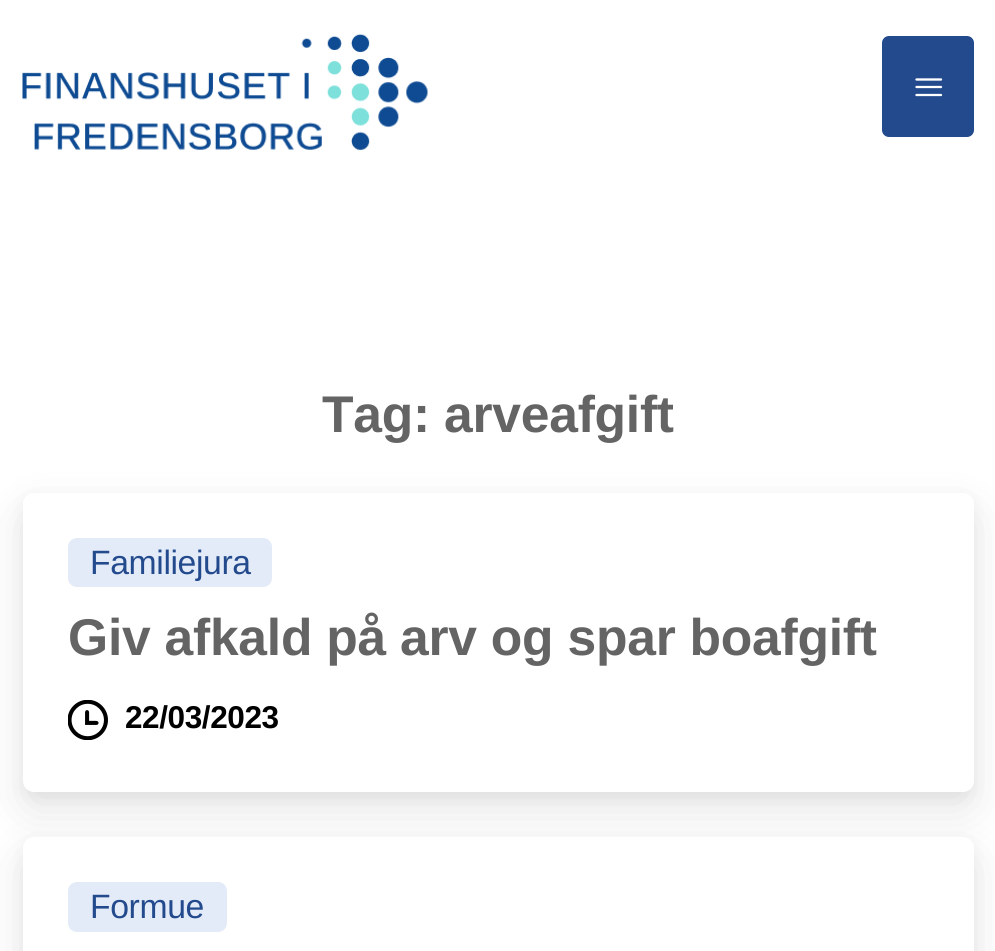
#include <cairo.h>
#include <math.h>
#include <stddef.h>


static void ink(cairo_t *ctx, unsigned color) {
    cairo_set_source_rgb(ctx, (color >> 16) / 255.0, (color >> 8 & 255) / 255.0, (color & 255) / 255.0);
}

static void write_spaced(cairo_t *ctx, double x, double y, const char *s, double letter, double word) {
    cairo_move_to(ctx, x, y);
    while (*s) {
        char ch[5] = {0};
        int n = 0;
        do ch[n++] = *s++; while ((*s & 0xC0) == 0x80);
        cairo_show_text(ctx, ch);
        cairo_rel_move_to(ctx, letter + word * (*ch == ' '), 0);
    }
}

static void round_path(cairo_t *ctx, double x, double y, double w, double h, double r) {
    cairo_new_sub_path(ctx);
    cairo_arc(ctx, x + w - r, y + h - r, r, 0, M_PI / 2);
    cairo_arc(ctx, x + r, y + h - r, r, M_PI / 2, M_PI);
    cairo_arc(ctx, x + r, y + r, r, M_PI, 1.5 * M_PI);
    cairo_arc(ctx, x + w - r, y + r, r, 1.5 * M_PI, 2 * M_PI);
    cairo_close_path(ctx);
}

static void blur_box(cairo_t *ctx, double x, double y, double w, double h, double r, double blur, double alpha) {
    cairo_push_group_with_content(ctx, CAIRO_CONTENT_ALPHA);
    cairo_set_operator(ctx, CAIRO_OPERATOR_SOURCE);
    for (int i = 15; i >= -15 && fmin(w, h) + blur * i / 3 > 0; i -= 2) {
        double e = blur * i / 6;
        cairo_set_source_rgba(ctx, 0, 0, 0, alpha * erfc((i - 1) / 8.5) / 2);
        round_path(ctx, x - e, y - e, w + 2 * e, h + 2 * e, fmax(0, fmin(r + e + blur * .6, fmin(w, h) / 2 + e)));
        cairo_fill(ctx);
    }
    cairo_pattern_t *soft = cairo_pop_group(ctx);
    cairo_mask(ctx, soft);
    cairo_pattern_destroy(soft);
}

static void paste(cairo_t *ctx, const char *path, double x, double y, double w, double h) {
    cairo_surface_t *image = cairo_image_surface_create_from_png(path);
    cairo_save(ctx);
    cairo_set_source_surface(ctx, image, x, y);
    cairo_rectangle(ctx, x, y, w, h);
    cairo_fill(ctx);
    cairo_restore(ctx);
    cairo_surface_destroy(image);
}

int main(void) {
    cairo_surface_t *surface = cairo_image_surface_create(CAIRO_FORMAT_RGB24, 995, 951);
    cairo_t *ctx = cairo_create(surface);
    cairo_font_options_t *options = cairo_font_options_create();
    cairo_font_options_set_hint_metrics(options, CAIRO_HINT_METRICS_OFF);
    cairo_font_options_set_hint_style(options, CAIRO_HINT_STYLE_NONE);
    cairo_set_font_options(ctx, options);
    cairo_set_miter_limit(ctx, 4);
    ink(ctx, 0xFFFFFF);
    cairo_paint(ctx);
    paste(ctx, "media/1.png", 22, 33, 406, 118);
    ink(ctx, 0x234A8D);
    round_path(ctx, 882, 36, 92, 101, 7);
    cairo_fill(ctx);
    cairo_new_path(ctx);
    cairo_move_to(ctx, 916.5, 79.5);
    cairo_line_to(ctx, 941, 79.5);
    cairo_move_to(ctx, 916.5, 87);
    cairo_line_to(ctx, 941, 87);
    cairo_move_to(ctx, 916.5, 95);
    cairo_line_to(ctx, 941, 95);
    ink(ctx, 0xFFFFFF);
    cairo_set_line_width(ctx, 2.3);
    cairo_set_line_cap(ctx, CAIRO_LINE_CAP_ROUND);
    cairo_set_line_join(ctx, CAIRO_LINE_JOIN_ROUND);
    cairo_stroke(ctx);
    cairo_select_font_face(ctx, "Arimo", CAIRO_FONT_SLANT_NORMAL, CAIRO_FONT_WEIGHT_BOLD);
    cairo_set_font_size(ctx, 51.6);
    ink(ctx, 0x646464);
    write_spaced(ctx, 322, 432, "Tag: arveafgift", -0.25, 0);
    ink(ctx, 0x000000);
    blur_box(ctx, 23, 511, 951, 299, 11, 21.5, 0.1);
    blur_box(ctx, 23, 497, 951, 300, 11, 7, 0.05);
    ink(ctx, 0xFFFFFF);
    round_path(ctx, 23, 493, 951, 299, 11);
    cairo_fill(ctx);
    ink(ctx, 0xE3EBF8);
    round_path(ctx, 68, 538, 204, 49, 9);
    cairo_fill(ctx);
    cairo_select_font_face(ctx, "Arimo", CAIRO_FONT_SLANT_NORMAL, CAIRO_FONT_WEIGHT_NORMAL);
    cairo_set_font_size(ctx, 33.75);
    ink(ctx, 0x234A8D);
    write_spaced(ctx, 90, 574, "Familiejura", -0.4, 0);
    cairo_select_font_face(ctx, "Arimo", CAIRO_FONT_SLANT_NORMAL, CAIRO_FONT_WEIGHT_BOLD);
    cairo_set_font_size(ctx, 51.6);
    ink(ctx, 0x646464);
    write_spaced(ctx, 68, 655, "Giv afkald på arv og spar boafgift", -0.25, 0);
    paste(ctx, "media/2.png", 68, 700, 40, 40);
    cairo_set_font_size(ctx, 31.5);
    ink(ctx, 0x000000);
    write_spaced(ctx, 125, 728, "22/03/2023", -0.4, 0);
    ink(ctx, 0x000000);
    blur_box(ctx, 23, 855, 951, 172, 11, 21.5, 0.1);
    blur_box(ctx, 23, 842, 951, 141, 11, 7, 0.05);
    ink(ctx, 0xFFFFFF);
    round_path(ctx, 23, 837, 951, 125, 11);
    cairo_fill(ctx);
    ink(ctx, 0xE3EBF8);
    round_path(ctx, 68, 882, 159, 50, 9);
    cairo_fill(ctx);
    cairo_select_font_face(ctx, "Arimo", CAIRO_FONT_SLANT_NORMAL, CAIRO_FONT_WEIGHT_NORMAL);
    cairo_set_font_size(ctx, 33.75);
    ink(ctx, 0x234A8D);
    write_spaced(ctx, 90, 918, "Formue", -0.4, 0);
    cairo_surface_write_to_png(surface, "image.png");
    cairo_font_options_destroy(options);
    cairo_destroy(ctx);
    cairo_surface_destroy(surface);
    return 0;
}
